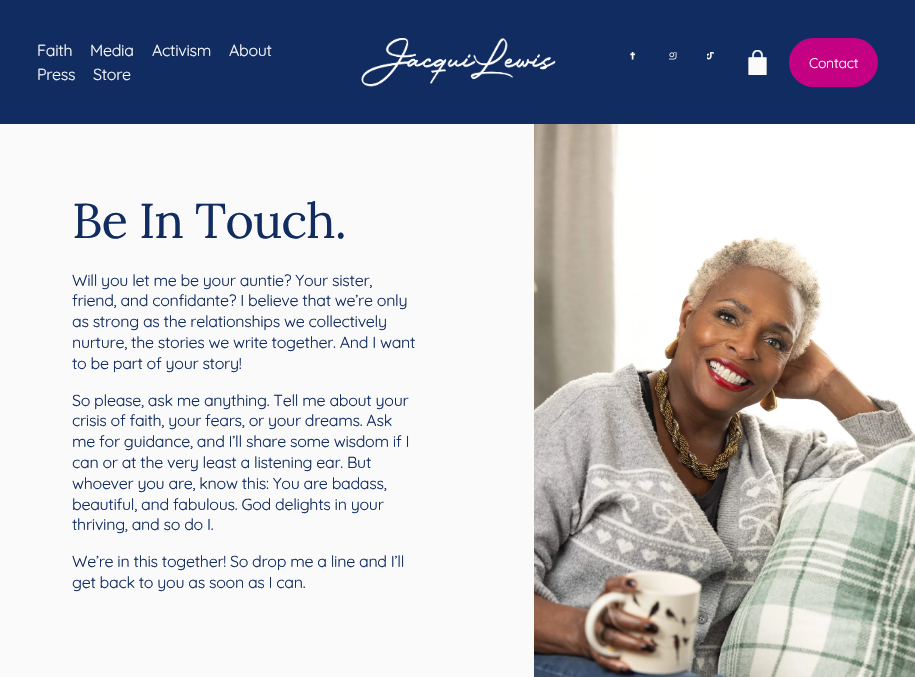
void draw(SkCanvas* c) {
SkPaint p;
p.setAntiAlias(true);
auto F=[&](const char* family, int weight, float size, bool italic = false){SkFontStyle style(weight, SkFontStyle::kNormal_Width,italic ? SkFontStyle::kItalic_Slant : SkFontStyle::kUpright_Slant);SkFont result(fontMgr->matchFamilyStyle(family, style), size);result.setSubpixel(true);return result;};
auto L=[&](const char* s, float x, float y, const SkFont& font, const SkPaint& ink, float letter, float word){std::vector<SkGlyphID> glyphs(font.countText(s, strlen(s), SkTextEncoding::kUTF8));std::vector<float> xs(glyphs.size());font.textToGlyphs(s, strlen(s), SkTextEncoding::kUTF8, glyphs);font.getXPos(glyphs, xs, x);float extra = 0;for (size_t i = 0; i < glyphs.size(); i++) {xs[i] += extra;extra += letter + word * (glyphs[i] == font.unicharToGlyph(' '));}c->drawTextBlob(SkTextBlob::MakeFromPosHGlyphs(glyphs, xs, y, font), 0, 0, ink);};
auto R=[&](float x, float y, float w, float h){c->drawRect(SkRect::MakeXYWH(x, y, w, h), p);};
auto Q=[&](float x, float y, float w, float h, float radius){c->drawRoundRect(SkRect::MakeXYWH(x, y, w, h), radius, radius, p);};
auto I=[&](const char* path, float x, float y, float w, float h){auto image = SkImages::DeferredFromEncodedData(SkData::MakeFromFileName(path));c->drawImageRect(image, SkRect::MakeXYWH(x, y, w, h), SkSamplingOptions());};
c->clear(0xfffafafa);
p.setColor(0xff112c61);
R(0,0,915,124);
auto f1 = F("Quicksand",400,16);
p.setColor(0xfffafafa);
L("Faith",37,56,f1,p,-.3,0);
L("Media",90,56,f1,p,-.3,0);
L("Activism",152,56,f1,p,-.3,0);
L("About",229,56,f1,p,-.3,0);
L("Press",37,80,f1,p,-.3,0);
L("Store",93,80,f1,p,-.3,0);
I("1.png",361,38,195,49);
I("2.png",630,52,6,8);
I("3.png",669,52,8,8);
I("4.png",707,52,7,8);
I("5.png",748,50,19,25);
p.setColor(0xffc40083);
Q(789,38,89,49,24.5);
auto f2 = F("Quicksand",400,14);
p.setColor(0xfffafafa);
L("Contact",809,68,f2,p,-.25,0);
auto f3 = F("Lora",400,49);
p.setColor(0xff112c61);
L("Be In Touch.",72,238,f3,p,-1,0);
I("6.png",534,124,381,553);
L("Will you let me be your auntie? Your sister,",72,286,f1,p,-.3,0);
L("friend, and confidante? I believe that we’re only",72,306,f1,p,-.3,0);
L("as strong as the relationships we collectively",72,327,f1,p,-.3,0);
L("nurture, the stories we write together. And I want",72,348,f1,p,-.3,0);
L("to be part of your story!",72,369,f1,p,-.3,0);
L("So please, ask me anything. Tell me about your",72,406,f1,p,-.3,0);
L("crisis of faith, your fears, or your dreams. Ask",72,426,f1,p,-.3,0);
L("me for guidance, and I’ll share some wisdom if I",72,447,f1,p,-.3,0);
L("can or at the very least a listening ear. But",72,468,f1,p,-.3,0);
L("whoever you are, know this: You are badass,",72,489,f1,p,-.3,0);
L("beautiful, and fabulous. God delights in your",72,510,f1,p,-.3,0);
L("thriving, and so do I.",72,530,f1,p,-.3,0);
L("We’re in this together! So drop me a line and I’ll",72,567,f1,p,-.3,0);
L("get back to you as soon as I can.",72,588,f1,p,-.3,0);
}
